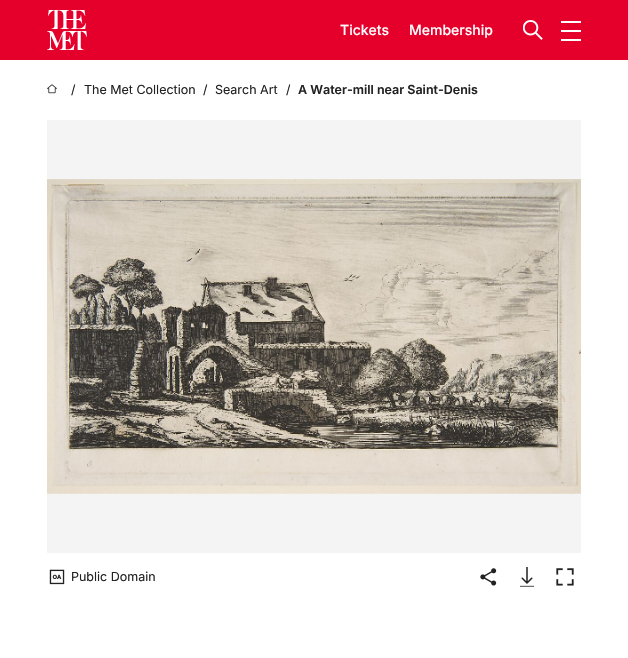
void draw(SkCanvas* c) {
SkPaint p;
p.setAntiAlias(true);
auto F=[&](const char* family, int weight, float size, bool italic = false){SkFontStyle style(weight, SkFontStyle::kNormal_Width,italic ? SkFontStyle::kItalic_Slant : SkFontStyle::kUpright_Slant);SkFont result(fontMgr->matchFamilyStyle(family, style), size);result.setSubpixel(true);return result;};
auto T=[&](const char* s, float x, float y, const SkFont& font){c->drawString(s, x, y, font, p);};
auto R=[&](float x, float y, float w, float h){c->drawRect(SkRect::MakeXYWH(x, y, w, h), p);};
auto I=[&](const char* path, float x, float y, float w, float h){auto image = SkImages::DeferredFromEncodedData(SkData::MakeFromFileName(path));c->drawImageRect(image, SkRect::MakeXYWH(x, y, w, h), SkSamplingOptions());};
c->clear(0xffffffff);
p.setColor(0xffe4002b);
R(0,0,628,60);
I("1.png",47,10,40,40);
auto f1 = F("Inter",500,14);
p.setColor(0xffffffff);
T("Tickets",340,35,f1);
T("Membership",409,35,f1);
I("2.png",523,20,20,20);
I("3.png",561,21,20,20);
I("4.png",47,84,10,10);
auto f2 = F("Inter",400,12.5);
p.setColor(0xff222222);
T("/",71,94,f2);
T("The Met Collection",84,94,f2);
T("/",203,94,f2);
T("Search Art",215,94,f2);
T("/",286,94,f2);
auto f3 = F("Inter",600,12.5);
T("A Water-mill near Saint-Denis",298,94,f3);
p.setColor(0xfff4f4f4);
R(47,120,534,433);
I("5.png",47,179,534,315);
I("6.png",49,569,16,16);
p.setColor(0xff222222);
T("Public Domain",71,581,f2);
I("7.png",480,568,17,18);
I("8.png",520,567,14,20);
I("9.png",556,568,18,18);
}
